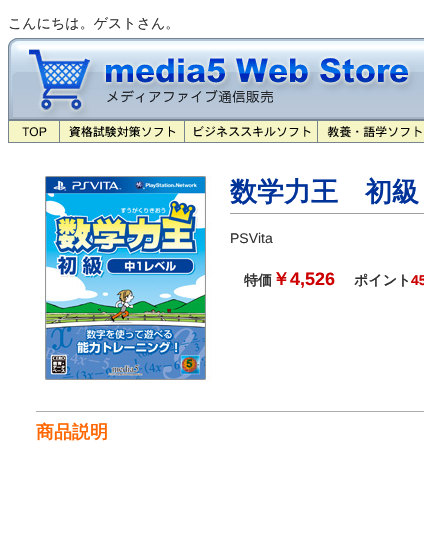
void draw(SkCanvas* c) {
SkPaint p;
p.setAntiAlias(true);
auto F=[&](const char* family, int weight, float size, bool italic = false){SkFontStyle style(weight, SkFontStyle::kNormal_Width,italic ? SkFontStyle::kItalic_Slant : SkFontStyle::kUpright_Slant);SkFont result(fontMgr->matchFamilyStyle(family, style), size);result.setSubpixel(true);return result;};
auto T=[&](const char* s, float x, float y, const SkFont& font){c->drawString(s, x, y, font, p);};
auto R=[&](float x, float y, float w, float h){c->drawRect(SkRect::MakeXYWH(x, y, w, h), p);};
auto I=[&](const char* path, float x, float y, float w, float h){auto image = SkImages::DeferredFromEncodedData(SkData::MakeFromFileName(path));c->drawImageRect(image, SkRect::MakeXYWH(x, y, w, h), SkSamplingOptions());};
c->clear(0xffffffff);
auto f1 = F("WenQuanYi Zen Hei",500,14);
p.setColor(0xff333333);
T("こんにちは。ゲストさん。",8,28,f1);
I("1.png",8,38,416,82);
I("2.png",8,120,51,23);
I("3.png",59,120,125,23);
I("4.png",184,120,133,23);
I("5.png",317,120,107,23);
I("6.png",44,175,168,208);
auto f2 = F("WenQuanYi Zen Hei",700,27);
p.setColor(0xff003399);
T("数学力王　初級",230,201,f2);
p.setColor(0xff9f9f9f);
R(230,213,194,1);
auto f3 = F("Liberation Sans",400,14);
p.setColor(0xff333333);
T("PSVita",230,243,f3);
auto f4 = F("WenQuanYi Zen Hei",700,14);
T("特価",244,285,f4);
auto f5 = F("WenQuanYi Zen Hei",700,18);
p.setColor(0xffcc0000);
T("￥",272,285,f5);
auto f6 = F("Liberation Sans",700,18);
T("4,526",290,285,f6);
p.setColor(0xff333333);
T("ポイント",354,285,f4);
auto f7 = F("Liberation Sans",700,14);
p.setColor(0xffcc0000);
T("45",411,285,f7);
p.setColor(0xffadadad);
R(36,411,388,1);
p.setColor(0xffff6600);
T("商品説明",36,438,f5);
}
